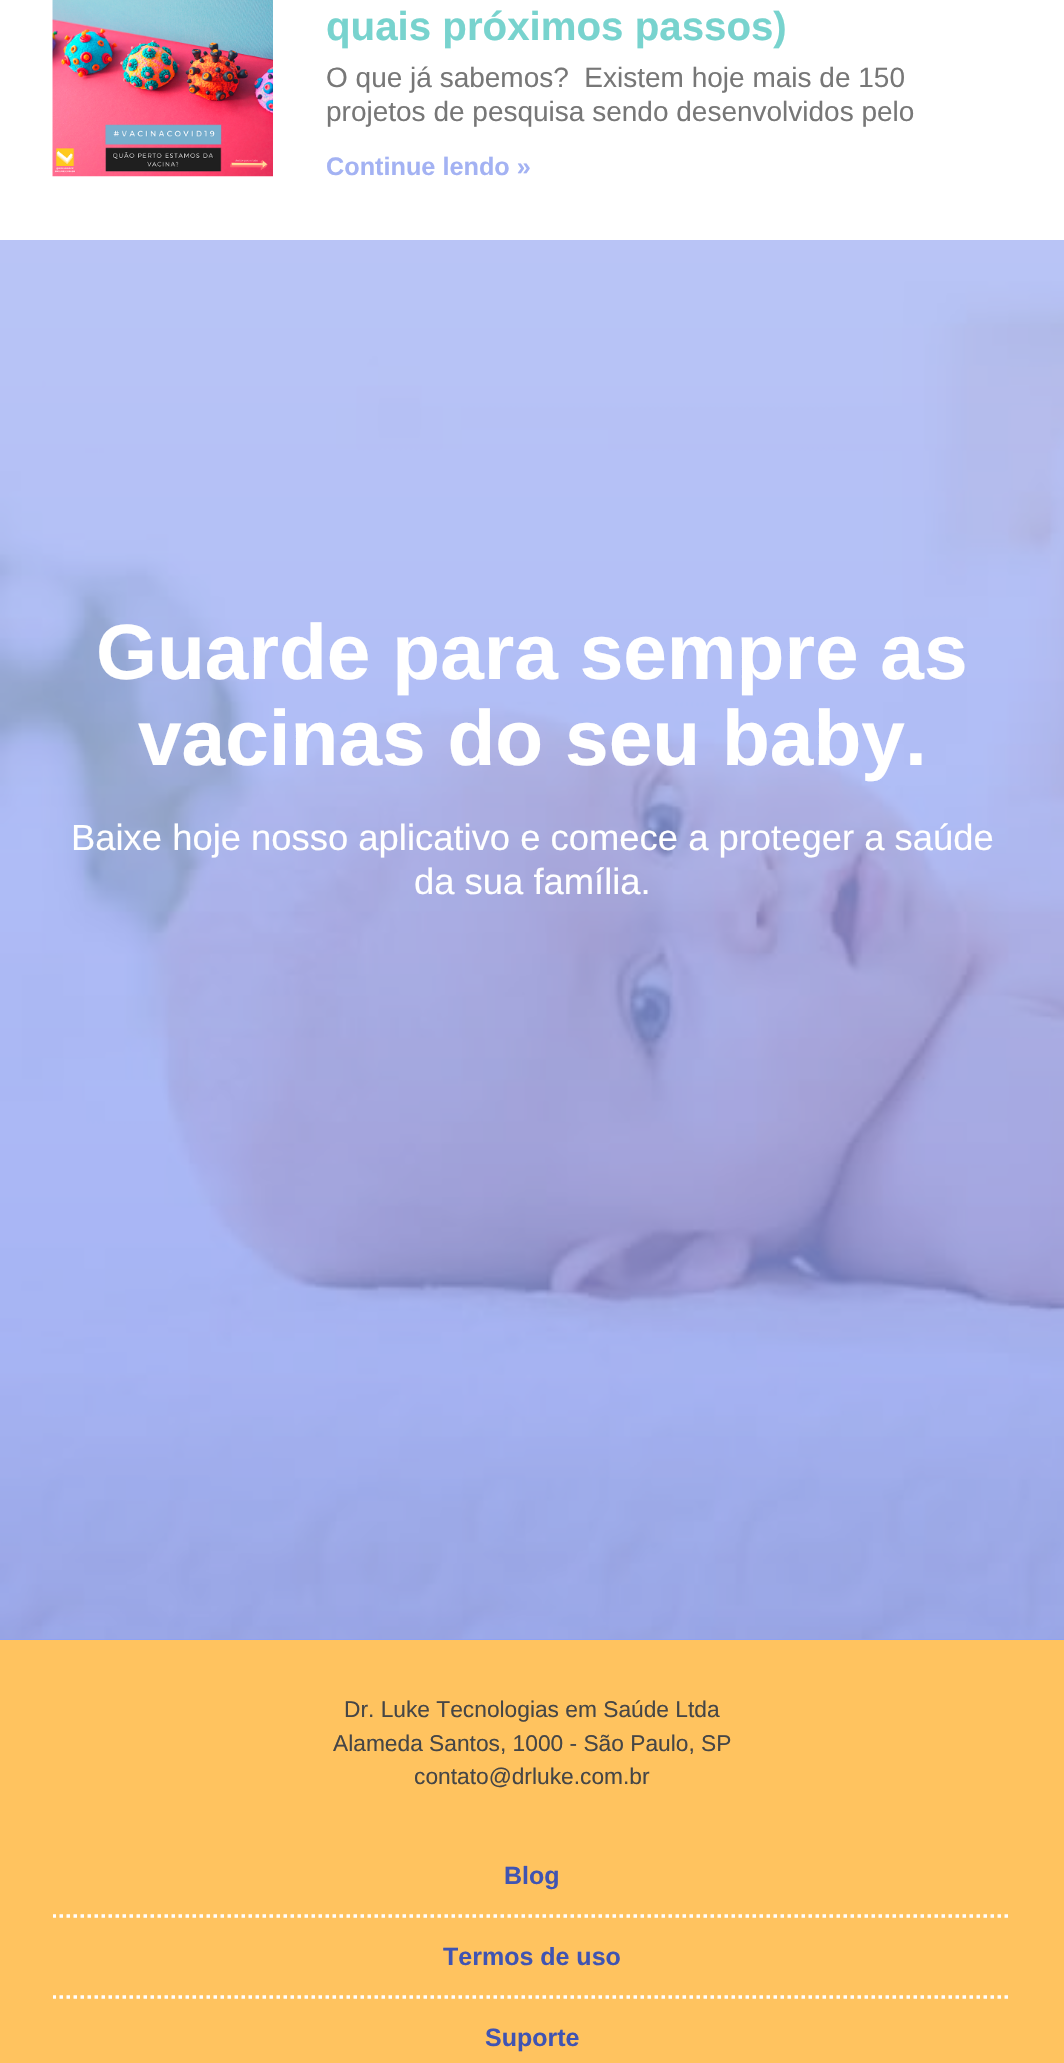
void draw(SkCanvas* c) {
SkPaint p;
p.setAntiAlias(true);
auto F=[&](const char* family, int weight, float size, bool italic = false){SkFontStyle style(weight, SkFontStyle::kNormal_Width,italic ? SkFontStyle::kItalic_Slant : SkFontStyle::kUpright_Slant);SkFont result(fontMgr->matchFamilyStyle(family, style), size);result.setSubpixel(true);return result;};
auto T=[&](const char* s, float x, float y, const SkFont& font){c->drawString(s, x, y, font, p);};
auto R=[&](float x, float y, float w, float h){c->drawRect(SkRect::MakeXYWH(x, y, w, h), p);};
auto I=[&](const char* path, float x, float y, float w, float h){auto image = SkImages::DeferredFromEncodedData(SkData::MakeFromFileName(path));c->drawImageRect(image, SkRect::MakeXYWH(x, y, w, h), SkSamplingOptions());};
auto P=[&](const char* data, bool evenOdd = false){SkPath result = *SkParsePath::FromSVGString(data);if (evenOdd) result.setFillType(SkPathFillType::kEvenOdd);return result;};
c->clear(0xffffffff);
I("1.png",52,0,221,177);
auto f1 = F("Liberation Sans",700,40.25);
p.setColor(0xff78d3ce);
T("quais próximos passos)",326,40,f1);
auto f2 = F("Liberation Sans",400,28);
p.setColor(0xff777777);
T("O que já sabemos?  Existem hoje mais de 150",326,87,f2);
T("projetos de pesquisa sendo desenvolvidos pelo",326,121,f2);
auto f3 = F("Liberation Sans",700,25.25);
p.setColor(0xffa3b2f3);
T("Continue lendo »",326,175,f3);
R(0,1639,1064,1);
I("2.png",0,240,1064,1400);
{
const SkColor colors[] = {0xc2a3b2f3,0xc2859af3};
const float stops[] = {0,1};
const SkPoint ends[] = {{532,240}, {532,1640}};
p.setShader(SkGradientShader::MakeLinear(ends, colors, stops, 2, SkTileMode::kClamp));
p.setAlpha(255);
}
R(0,240,1064,1400);
auto f4 = F("Liberation Sans",700,78.4);
p.setShader(nullptr);
p.setColor(0xffffffff);
T("Guarde para sempre as",96,679,f4);
T("vacinas do seu baby.",138,765,f4);
auto f5 = F("Liberation Sans",400,36.4);
T("Baixe hoje nosso aplicativo e comece a proteger a saúde",71,850,f5);
T("da sua família.",414,894,f5);
p.setColor(0xffffc35f);
R(0,1640,1064,423);
auto f6 = F("Liberation Sans",400,22.75);
p.setColor(0xff464646);
T("Dr. Luke Tecnologias em Saúde Ltda",344,1717,f6);
T("Alameda Santos, 1000 - São Paulo, SP",333,1751,f6);
T("contato@drluke.com.br",414,1784,f6);
c->save();
c->clipRect(SkRect::MakeXYWH(53,1836,959,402));
p.setStroke(true);
p.setStrokeWidth(3.5);
p.setColor(0xffffffff);
p.setPathEffect(SkDashPathEffect::Make({{3.5f,3.5f}}, 0));
c->drawPath(P("M52.5 1916h959"),p);
p.setPathEffect(nullptr);
c->restore();
auto f7 = F("Liberation Sans",700,25);
p.setStroke(false);
p.setColor(0xff4054b2);
T("Blog",504,1884,f7);
c->save();
c->clipRect(SkRect::MakeXYWH(53,1836,959,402));
p.setStroke(true);
p.setColor(0xffffffff);
p.setPathEffect(SkDashPathEffect::Make({{3.5f,3.5f}}, 0));
c->drawPath(P("M52.5 1997h959"),p);
p.setPathEffect(nullptr);
c->restore();
p.setStroke(false);
p.setColor(0xff4054b2);
T("Termos de uso",443,1965,f7);
T("Suporte",485,2046,f7);
}
